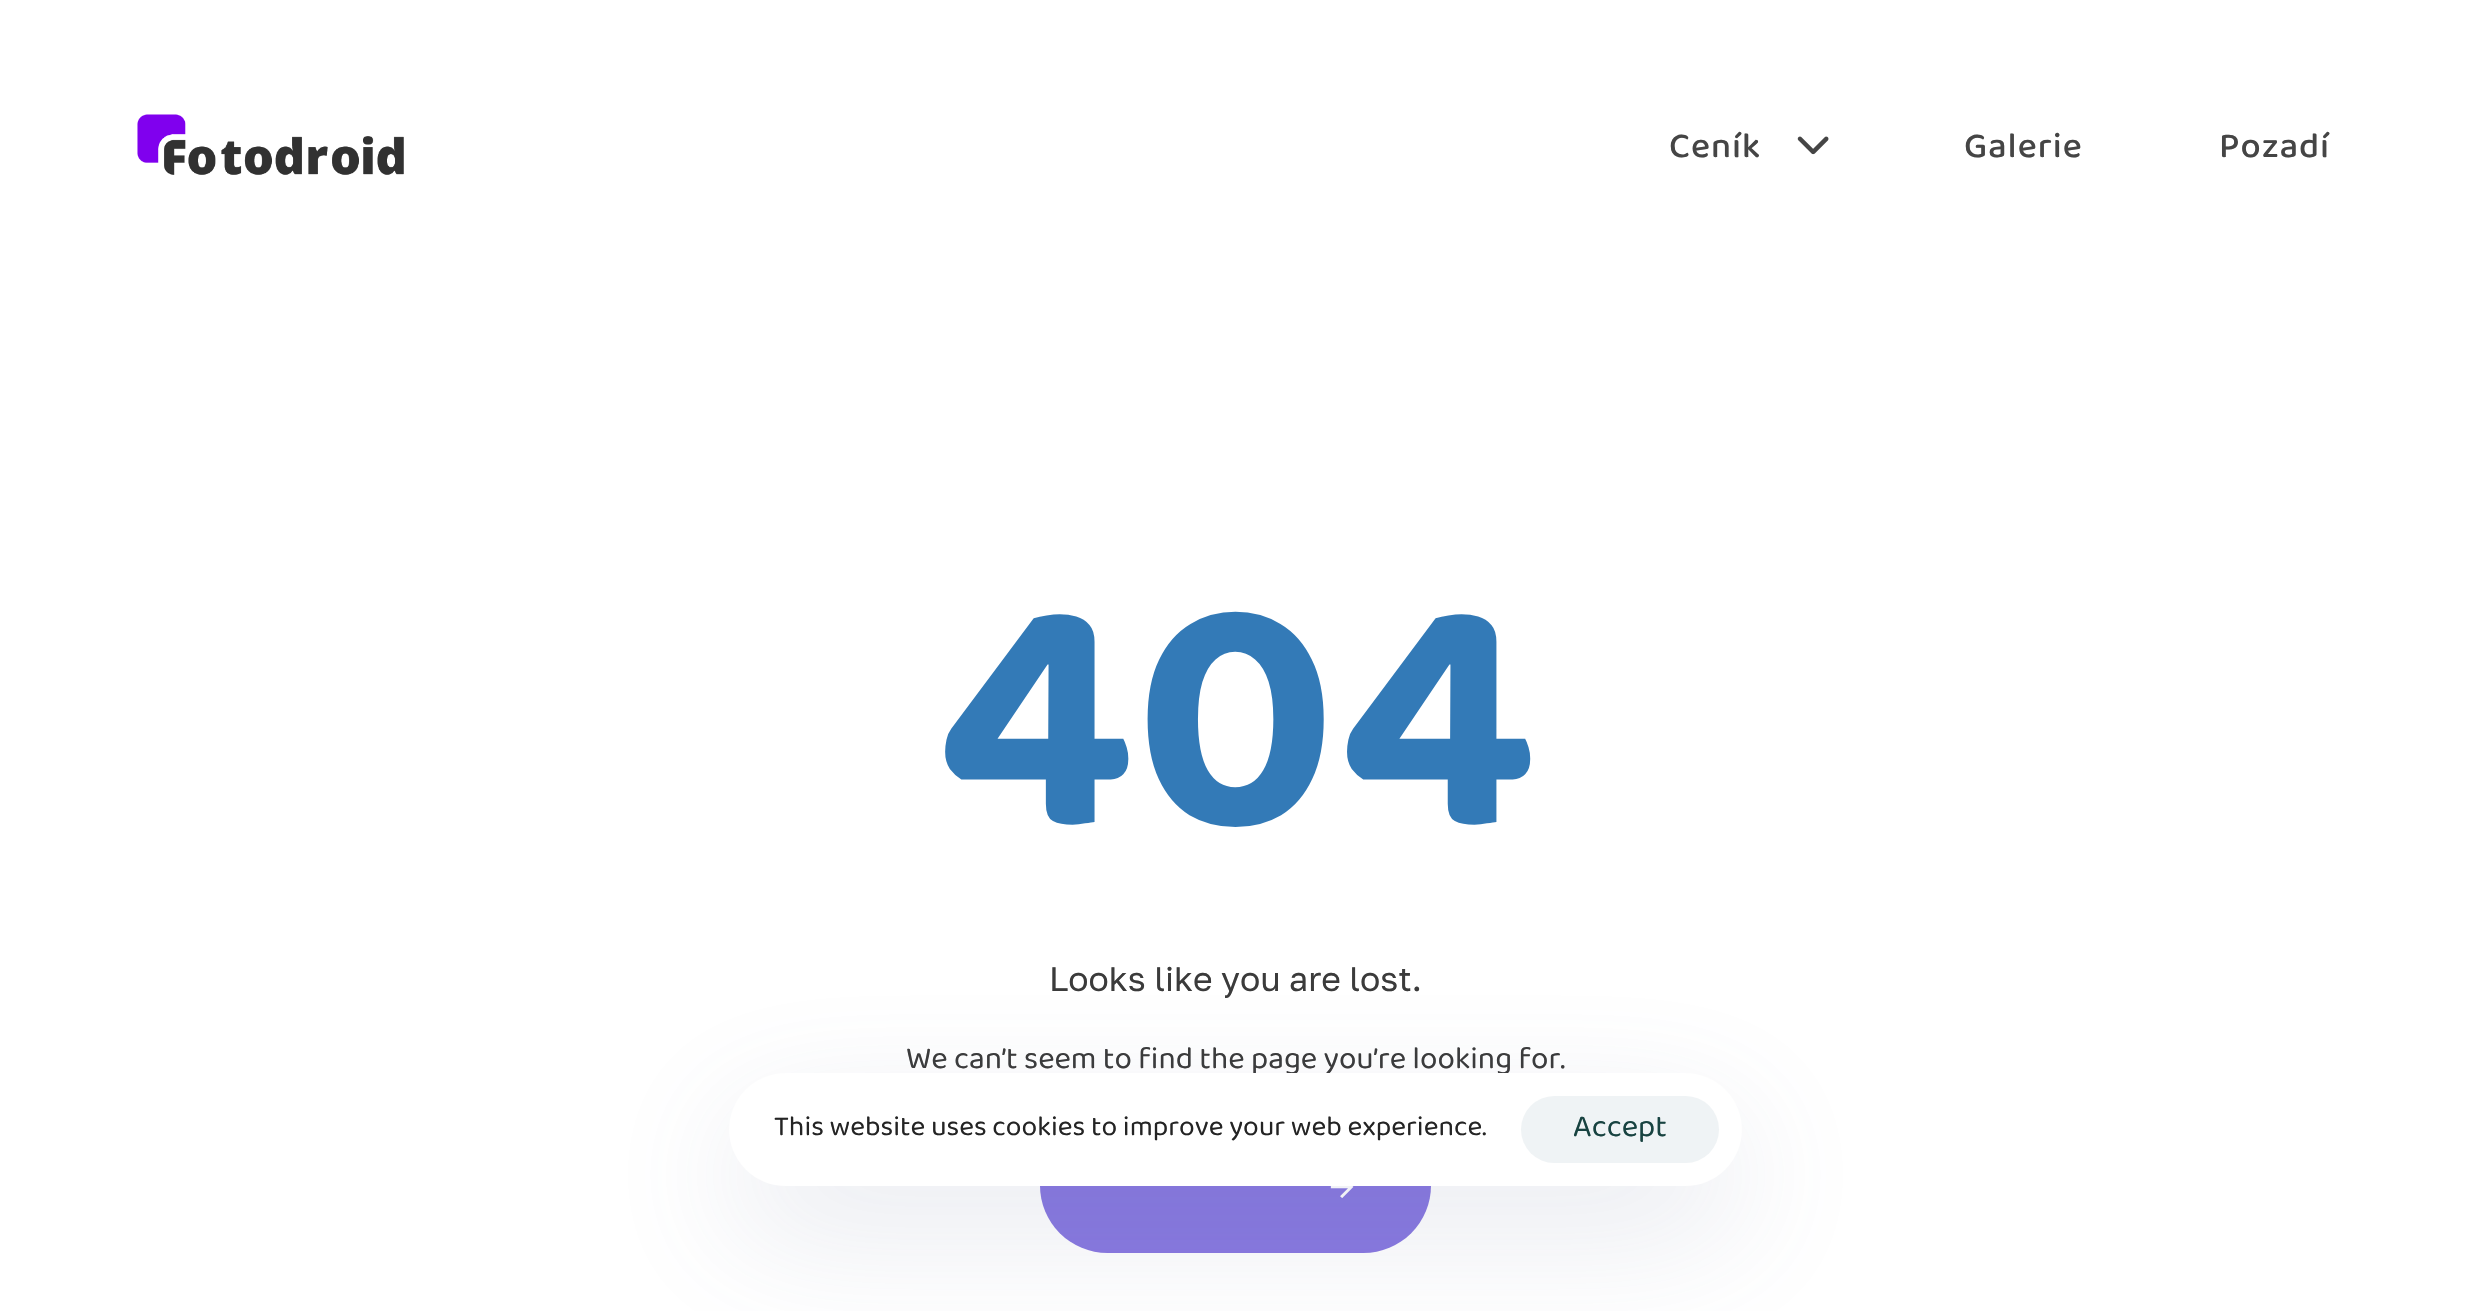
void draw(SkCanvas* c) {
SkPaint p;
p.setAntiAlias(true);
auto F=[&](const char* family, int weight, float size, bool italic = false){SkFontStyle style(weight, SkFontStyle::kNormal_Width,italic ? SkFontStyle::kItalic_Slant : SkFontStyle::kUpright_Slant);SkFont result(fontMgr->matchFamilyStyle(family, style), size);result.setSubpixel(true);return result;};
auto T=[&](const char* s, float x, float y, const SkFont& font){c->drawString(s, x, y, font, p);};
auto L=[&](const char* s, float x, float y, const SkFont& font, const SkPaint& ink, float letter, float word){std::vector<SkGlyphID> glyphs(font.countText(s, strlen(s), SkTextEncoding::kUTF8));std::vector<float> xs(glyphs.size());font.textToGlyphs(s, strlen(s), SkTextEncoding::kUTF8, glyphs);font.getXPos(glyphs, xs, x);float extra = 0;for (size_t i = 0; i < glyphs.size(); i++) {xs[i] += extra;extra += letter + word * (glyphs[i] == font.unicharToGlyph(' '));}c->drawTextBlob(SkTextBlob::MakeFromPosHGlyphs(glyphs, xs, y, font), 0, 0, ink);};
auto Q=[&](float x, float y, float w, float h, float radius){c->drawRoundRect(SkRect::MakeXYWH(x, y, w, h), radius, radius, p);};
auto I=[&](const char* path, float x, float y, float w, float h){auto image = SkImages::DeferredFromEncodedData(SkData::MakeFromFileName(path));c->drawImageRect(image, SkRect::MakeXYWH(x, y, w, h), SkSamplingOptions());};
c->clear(0xffffffff);
I("1.png",137,114,267,61);
auto f1 = F("Baloo Da 2",500,36);
p.setColor(0xff454545);
L("Ceník",1669,157,f1,p,1,0);
I("2.png",1797,136,32,19);
L("Galerie",1964,157,f1,p,1,0);
L("Pozadí",2219,157,f1,p,1,0);
auto f2 = F("Baloo Da 2",700,338);
p.setColor(0xff337ab7);
T("404",935,822,f2);
auto f3 = F("Golos Text",400,33.75);
p.setColor(0xff3a3a3a);
T("Looks like you are lost.",1049,991,f3);
auto f4 = F("Baloo Da 2",400,31.5);
T("We can’t seem to find the page you’re looking for.",906,1068,f4);
p.setColor(0xff8777e0);
Q(1040,1118,391,135,67.5);
I("3.png",1330,1186,24,12);
p.setColor(0x265c6b95);
p.setMaskFilter(SkMaskFilter::MakeBlur(kNormal_SkBlurStyle, 67.5));
c->drawRoundRect(SkRect::MakeXYWH(729,1118,1013,113),56.5,56.5,p);
p.setMaskFilter(nullptr);
p.setColor(0xffffffff);
Q(729,1073,1013,113,56.5);
auto f5 = F("Baloo Da 2",400,28.35);
p.setColor(0xff242424);
T("This website uses cookies to improve your web experience.",774,1135,f5);
p.setColor(0xffeff3f5);
Q(1521,1096,198,67,33.5);
p.setColor(0xff184341);
T("Accept",1573,1136,f4);
}
